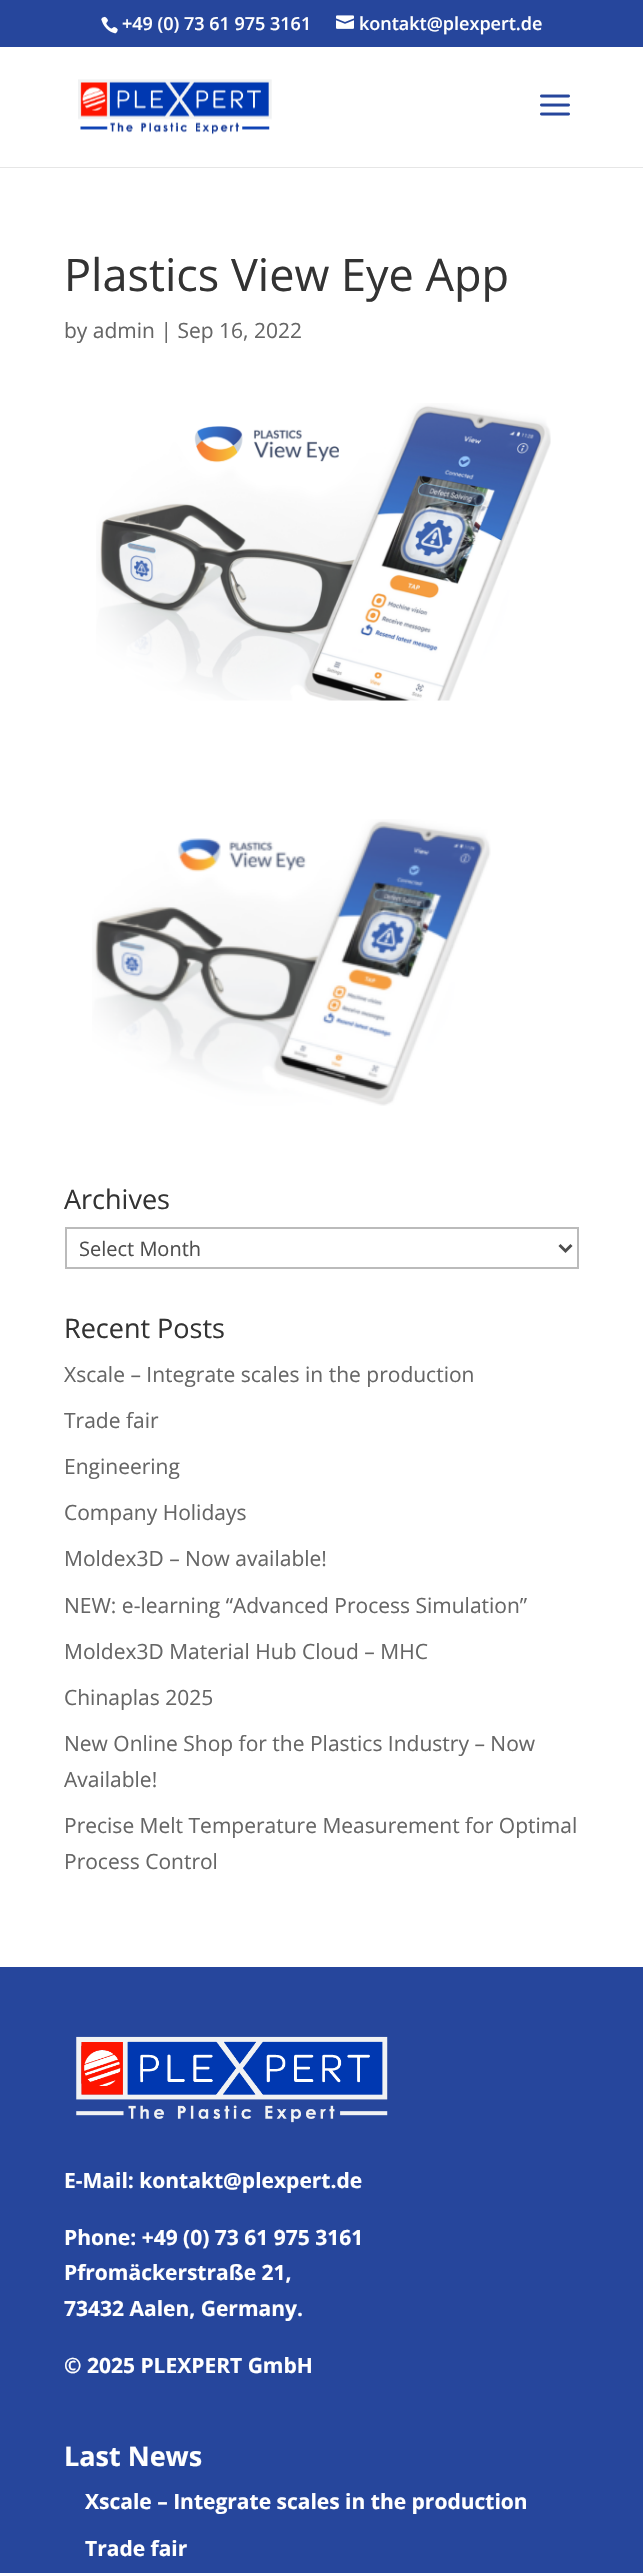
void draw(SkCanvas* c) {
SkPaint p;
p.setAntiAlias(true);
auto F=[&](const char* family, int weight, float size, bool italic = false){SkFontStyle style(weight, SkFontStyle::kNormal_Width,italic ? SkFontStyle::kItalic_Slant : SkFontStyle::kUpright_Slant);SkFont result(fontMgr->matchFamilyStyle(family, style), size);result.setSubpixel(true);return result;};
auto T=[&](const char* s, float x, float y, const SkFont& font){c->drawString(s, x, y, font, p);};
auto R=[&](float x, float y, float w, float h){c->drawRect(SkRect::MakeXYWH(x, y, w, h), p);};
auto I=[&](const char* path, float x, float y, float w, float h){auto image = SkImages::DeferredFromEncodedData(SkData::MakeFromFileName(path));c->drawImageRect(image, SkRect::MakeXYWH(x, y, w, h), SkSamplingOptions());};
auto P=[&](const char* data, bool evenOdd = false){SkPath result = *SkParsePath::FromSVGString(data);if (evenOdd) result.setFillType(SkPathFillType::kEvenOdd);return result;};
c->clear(0xffffffff);
p.setColor(0xff26469c);
R(0,0,643,47);
I("1.png",101,16,17,18);
auto f1 = F("Open Sans",600,18);
p.setColor(0xffffffff);
T("+49 (0) 73 61 975 3161",122,30,f1);
I("2.png",336,15,18,14);
T("kontakt@plexpert.de",359,30,f1);
p.setColor(0xffe6e6e6);
c->drawPath(P("M0 166v2h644v-120v118z"),p);
p.setColor(0xffffffff);
R(0,166,643,1);
I("3.png",78,79,194,56);
I("4.png",540,94,30,22);
auto f2 = F("Open Sans",400,45);
p.setColor(0xff333333);
T("Plastics View Eye App",64,291,f2);
auto f3 = F("Open Sans",400,21);
p.setColor(0xff666666);
T("by admin | Sep 16, 2022",64,338,f3);
I("5.png",96,403,455,298);
I("6.png",92,819,399,287);
auto f4 = F("Open Sans",400,27);
p.setColor(0xff333333);
T("Archives",64,1209,f4);
p.setStroke(true);
p.setStrokeWidth(2);
p.setColor(0xffbbbbbb);
c->drawRect(SkRect::MakeXYWH(66,1228,512,40),p);
p.setStrokeWidth(3);
p.setColor(0xff4e4e4e);
c->drawPath(P("M559.5 1245l6 6l6-6"),p);
auto f5 = F("Open Sans",400,20);
p.setStroke(false);
T("Select Month",79,1256,f5);
p.setColor(0xff333333);
T("Recent Posts",64,1338,f4);
p.setColor(0xff666666);
T("Xscale – Integrate scales in the production",64,1382,f3);
T("Trade fair",64,1428,f3);
T("Engineering",64,1474,f3);
T("Company Holidays",64,1520,f3);
T("Moldex3D – Now available!",64,1566,f3);
T("NEW: e-learning “Advanced Process Simulation”",64,1613,f3);
T("Moldex3D Material Hub Cloud – MHC",64,1659,f3);
T("Chinaplas 2025",64,1705,f3);
T("New Online Shop for the Plastics Industry – Now",64,1751,f3);
T("Available!",64,1787,f3);
T("Precise Melt Temperature Measurement for Optimal",64,1833,f3);
T("Process Control",64,1869,f3);
p.setColor(0xff26469c);
R(0,1967,643,606);
I("7.png",76,2036,312,87);
auto f6 = F("Open Sans",700,21);
p.setColor(0xffffffff);
T("E-Mail: kontakt@plexpert.de",64,2188,f6);
T("Phone: +49 (0) 73 61 975 3161",64,2245,f6);
T("Pfromäckerstraße 21,",64,2280,f6);
T("73432 Aalen, Germany.",64,2316,f6);
T("© 2025 PLEXPERT GmbH",64,2373,f6);
auto f7 = F("Open Sans",700,27);
T("Last News",64,2466,f7);
T("Xscale – Integrate scales in the production",85,2509,f6);
T("Trade fair",85,2556,f6);
}
